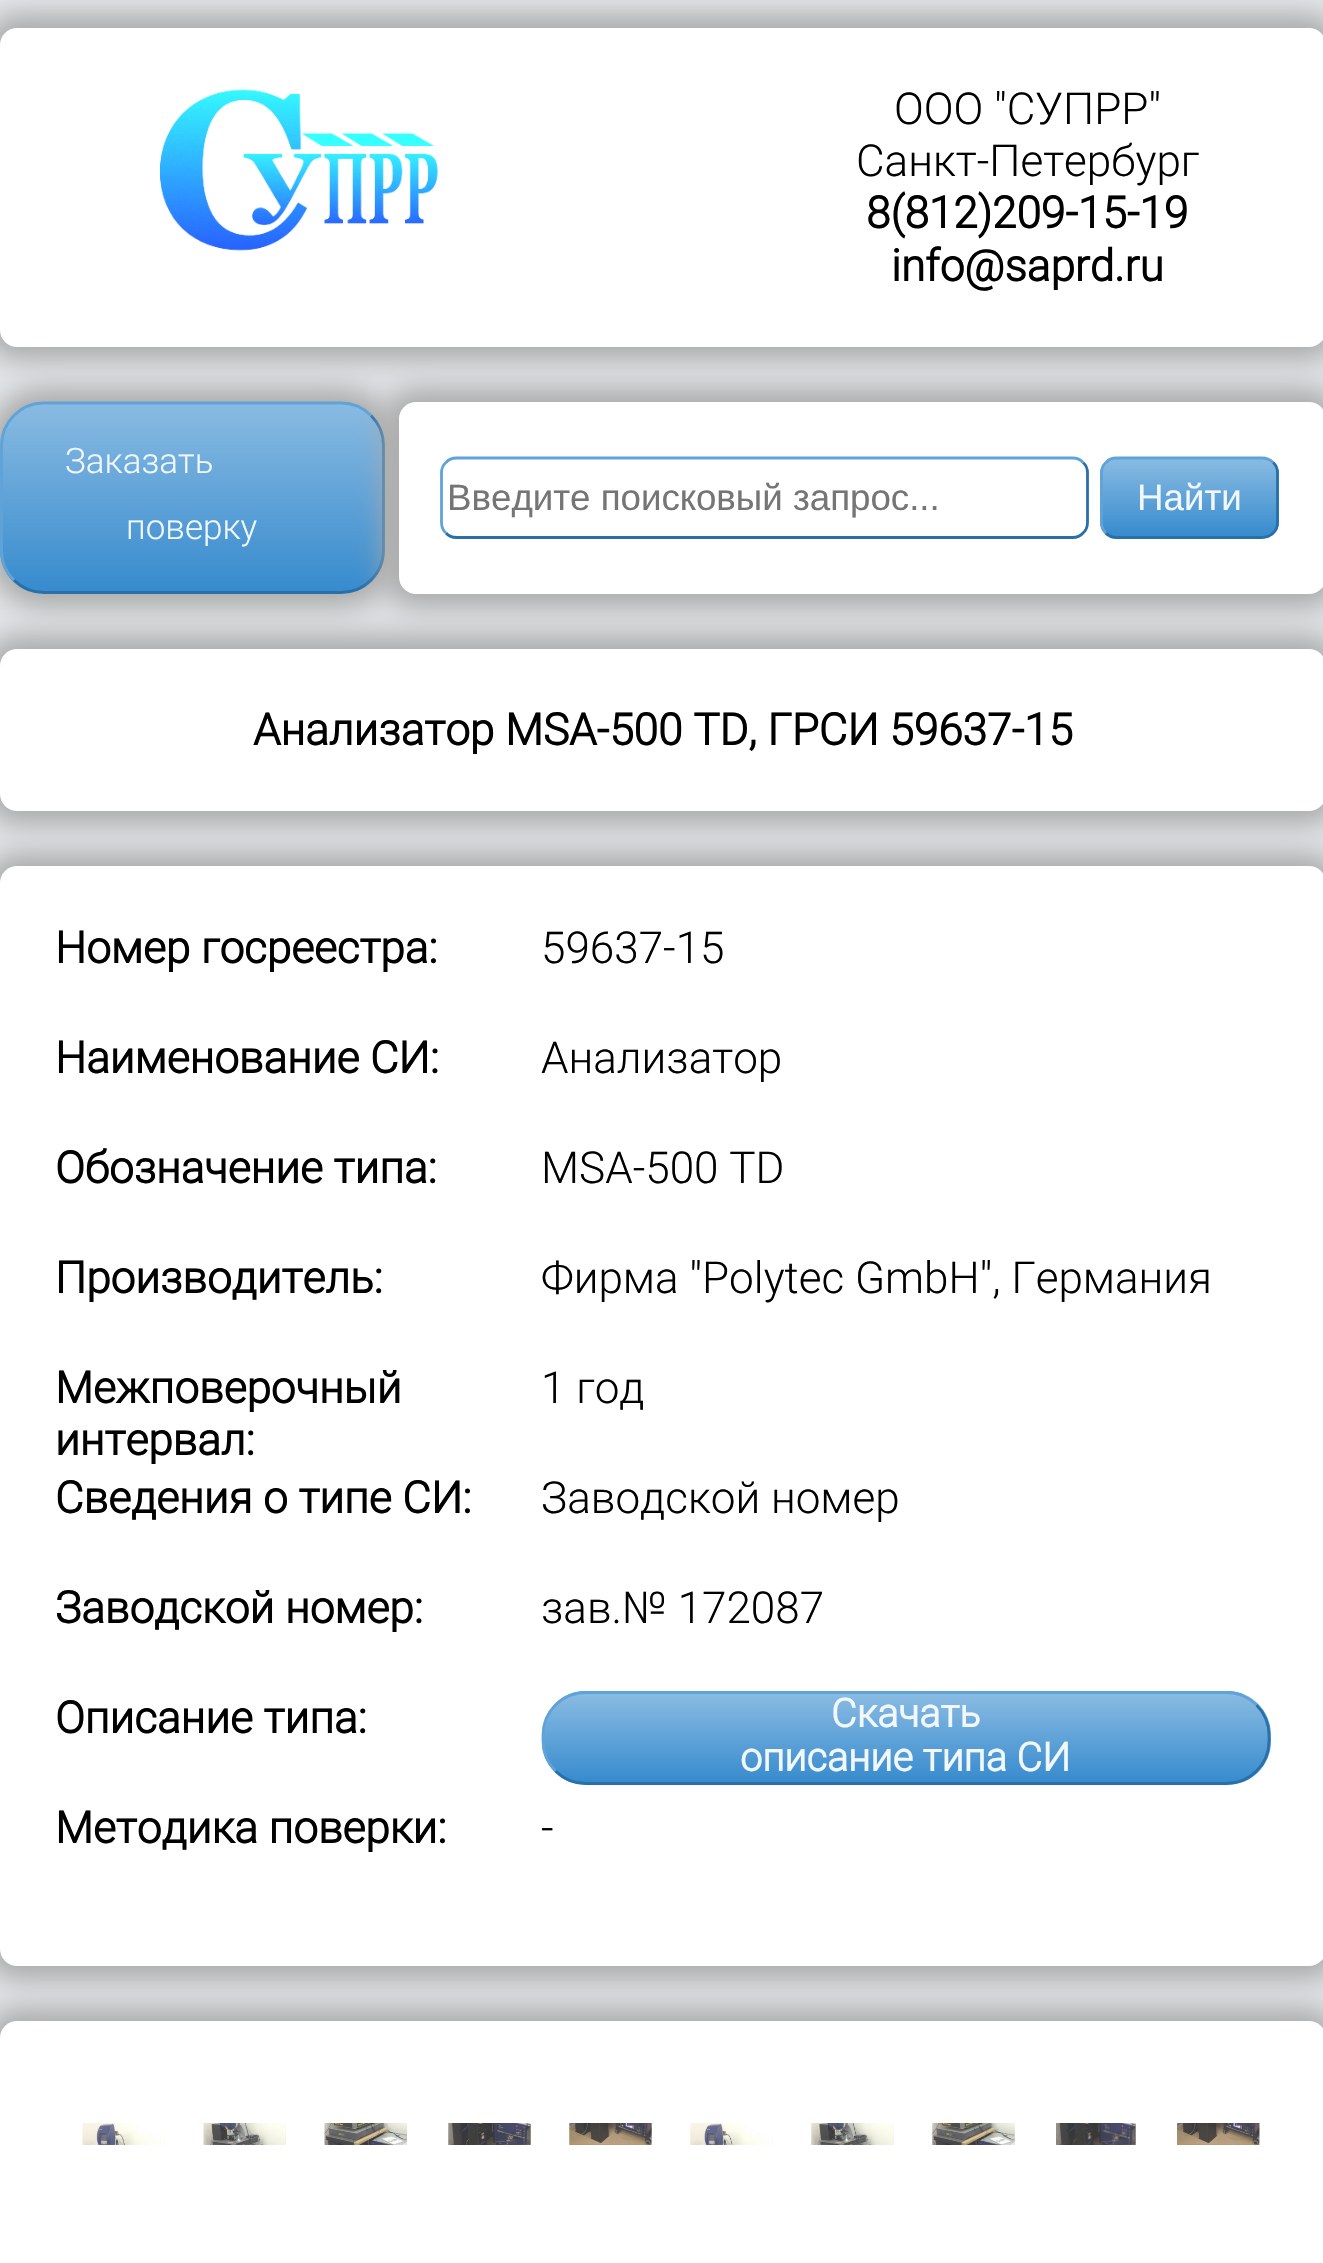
void draw(SkCanvas* c) {
SkPaint p;
p.setAntiAlias(true);
auto F=[&](const char* family, int weight, float size, bool italic = false){SkFontStyle style(weight, SkFontStyle::kNormal_Width,italic ? SkFontStyle::kItalic_Slant : SkFontStyle::kUpright_Slant);SkFont result(fontMgr->matchFamilyStyle(family, style), size);result.setSubpixel(true);return result;};
auto T=[&](const char* s, float x, float y, const SkFont& font){c->drawString(s, x, y, font, p);};
auto R=[&](float x, float y, float w, float h){c->drawRect(SkRect::MakeXYWH(x, y, w, h), p);};
auto Q=[&](float x, float y, float w, float h, float radius){c->drawRoundRect(SkRect::MakeXYWH(x, y, w, h), radius, radius, p);};
auto I=[&](const char* path, float x, float y, float w, float h){auto image = SkImages::DeferredFromEncodedData(SkData::MakeFromFileName(path));c->drawImageRect(image, SkRect::MakeXYWH(x, y, w, h), SkSamplingOptions());};
auto P=[&](const char* data, bool evenOdd = false){SkPath result = *SkParsePath::FromSVGString(data);if (evenOdd) result.setFillType(SkPathFillType::kEvenOdd);return result;};
c->clear(0xffe4e7ea);
p.setColor(0xffaaaaaa);
p.setMaskFilter(SkMaskFilter::MakeBlur(kNormal_SkBlurStyle, 14));
c->drawRoundRect(SkRect::MakeXYWH(-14,14,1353,346),30,30,p);
p.setMaskFilter(nullptr);
p.setColor(0xffffffff);
Q(0,28,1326,319,17);
I("1.png",159,89,279,162);
auto f1 = F("Roboto",300,44);
p.setColor(0xff000000);
T("ООО \"СУПРР\"",894,124,f1);
T("Санкт-Петербург",856,176,f1);
auto f2 = F("Roboto",700,44);
T("8(812)209-15-19",866,228,f2);
T("info@saprd.ru",891,281,f2);
p.setColor(0xffaaaaaa);
p.setMaskFilter(SkMaskFilter::MakeBlur(kNormal_SkBlurStyle, 14));
c->drawRoundRect(SkRect::MakeXYWH(-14,388,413,220),58,58,p);
p.setMaskFilter(nullptr);
c->save();
c->clipPath(P("M44 402h297c24.5 0 44 19.5 44 44v104c0 24.5-19.5 44-44 44h-297c-24.5 0-44-19.5-44-44v-104c0-24.5 19.5-44 44-44z"),true);
{
const SkColor colors[] = {0xff89bbe2,0xff60a3d8,0xff378bce};
const float stops[] = {0,.5,1};
const SkPoint ends[] = {{193,404}, {193,591}};
p.setShader(SkGradientShader::MakeLinear(ends, colors, stops, 3, SkTileMode::kClamp));
p.setAlpha(255);
}
R(0,404,385,187);
{
const SkColor colors[] = {0xff89bbe2,0xff60a3d8,0xff378bce};
const float stops[] = {0,.5,1};
const SkPoint ends[] = {{193,591}, {193,778}};
p.setShader(SkGradientShader::MakeLinear(ends, colors, stops, 3, SkTileMode::kClamp));
p.setAlpha(255);
}
R(28,591,329,3);
c->restore();
p.setStroke(true);
p.setStrokeWidth(2.8);
p.setShader(nullptr);
p.setColor(0xff2970a9);
c->drawPath(P("M371 415.5c8 8 12.5 18.5 12.5 30v104.5c0 11.5-4.5 22-12.5 30c-8 8-18.5 12.5-30 12.5h-297c-11.5 0-22-4.5-30-12.5"),p);
p.setColor(0xff60a3d8);
c->drawPath(P("M14 580c-8-8-12.5-18.5-12.5-30v-104.5c0-11.5 4.5-22 12.5-30c8-8 18.5-12.5 30-12.5h297c11.5 0 22 4.5 30 12.5"),p);
auto f3 = F("Roboto",300,35);
p.setStroke(false);
p.setColor(0xfff1f7fb);
T("Заказать",65,473,f3);
T("поверку",126,539,f3);
p.setColor(0xffaaaaaa);
p.setMaskFilter(SkMaskFilter::MakeBlur(kNormal_SkBlurStyle, 14));
c->drawRoundRect(SkRect::MakeXYWH(385,388,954,220),30,30,p);
p.setMaskFilter(nullptr);
p.setColor(0xffffffff);
Q(399,402,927,192,17);
p.setStroke(true);
p.setColor(0xff2970a9);
c->drawPath(P("M1083 462.5c3 2.5 4.5 6.5 4.5 10.5v49.5c0 4-1.5 8-4.5 10.5c-2.5 3-6.5 4.5-10.5 4.5h-616c-4 0-8-1.5-10.5-4.5"),p);
p.setColor(0xff60a3d8);
c->drawPath(P("M446 533c-3-2.5-4.5-6.5-4.5-10.5v-49.5c0-4 1.5-8 4.5-10.5c2.5-3 6.5-4.5 10.5-4.5h616c4 0 8 1.5 10.5 4.5"),p);
auto f4 = F("Liberation Sans",400,36.7);
p.setStroke(false);
p.setColor(0xff757575);
T("Введите поисковый запрос...",447,510,f4);
c->save();
c->clipPath(P("M1117 457h145c9.5 0 17 7.5 17 17v48c0 9.5-7.5 17-17 17h-145c-9.5 0-17-7.5-17-17v-48c0-9.5 7.5-17 17-17z"),true);
{
const SkColor colors[] = {0xff89bbe2,0xff60a3d8,0xff378bce};
const float stops[] = {0,.5,1};
const SkPoint ends[] = {{1189,459}, {1189,536}};
p.setShader(SkGradientShader::MakeLinear(ends, colors, stops, 3, SkTileMode::kClamp));
p.setAlpha(255);
}
R(1100,459,179,77);
c->restore();
p.setStroke(true);
p.setShader(nullptr);
p.setColor(0xff2970a9);
c->drawPath(P("M1273 462.5c3 2.5 4.5 6.5 4.5 10.5v49.5c0 4-1.5 8-4.5 10.5c-3 3-6.5 4.5-11 4.5h-145.5c-4 0-8-1.5-10.5-4.5"),p);
p.setColor(0xff60a3d8);
c->drawPath(P("M1106 533c-3-2.5-4.5-6.5-4.5-10.5v-49.5c0-4 1.5-8 4.5-10.5c2.5-3 6.5-4.5 10.5-4.5h145.5c4.5 0 8 1.5 11 4.5"),p);
p.setStroke(false);
p.setColor(0xfff1f7fb);
T("Найти",1137,510,f4);
p.setColor(0xffaaaaaa);
p.setMaskFilter(SkMaskFilter::MakeBlur(kNormal_SkBlurStyle, 14));
c->drawRoundRect(SkRect::MakeXYWH(-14,635,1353,190),30,30,p);
p.setMaskFilter(nullptr);
p.setColor(0xffffffff);
Q(0,649,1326,162,17);
p.setColor(0xff000000);
T("Анализатор MSA-500 TD, ГРСИ 59637-15",253,745,f2);
p.setColor(0xffaaaaaa);
p.setMaskFilter(SkMaskFilter::MakeBlur(kNormal_SkBlurStyle, 14));
c->drawRoundRect(SkRect::MakeXYWH(-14,853,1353,1127),30,30,p);
p.setMaskFilter(nullptr);
p.setColor(0xffffffff);
Q(0,866,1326,1100,17);
p.setColor(0xff000000);
T("Номер госреестра:",55,963,f2);
T("59637-15",541,963,f1);
T("Наименование СИ:",55,1073,f2);
T("Анализатор",541,1073,f1);
T("Обозначение типа:",55,1183,f2);
T("MSA-500 TD",541,1183,f1);
T("Производитель:",55,1293,f2);
T("Фирма \"Polytec GmbH\", Германия",541,1293,f1);
T("Межповерочный",55,1403,f2);
T("интервал:",55,1455,f2);
T("1 год",541,1403,f1);
T("Сведения о типе СИ:",55,1513,f2);
T("Заводской номер",541,1513,f1);
T("Заводской номер:",55,1623,f2);
T("зав.№ 172087",541,1623,f1);
T("Описание типа:",55,1733,f2);
c->save();
c->clipPath(P("M586 1691h641c24.5 0 44 19.5 44 44v6c0 24.5-19.5 44-44 44h-641c-24.5 0-44-19.5-44-44v-6c0-24.5 19.5-44 44-44z"),true);
{
const SkColor colors[] = {0xff89bbe2,0xff60a3d8,0xff378bce};
const float stops[] = {0,.5,1};
const SkPoint ends[] = {{906,1606}, {906,1694}};
p.setShader(SkGradientShader::MakeLinear(ends, colors, stops, 3, SkTileMode::kClamp));
p.setAlpha(255);
}
R(570,1691,673,3);
{
const SkColor colors[] = {0xff89bbe2,0xff60a3d8,0xff378bce};
const float stops[] = {0,.5,1};
const SkPoint ends[] = {{906,1694}, {906,1782}};
p.setShader(SkGradientShader::MakeLinear(ends, colors, stops, 3, SkTileMode::kClamp));
p.setAlpha(255);
}
R(542,1694,729,88);
{
const SkColor colors[] = {0xff89bbe2,0xff60a3d8,0xff378bce};
const float stops[] = {0,.5,1};
const SkPoint ends[] = {{906,1782}, {906,1870}};
p.setShader(SkGradientShader::MakeLinear(ends, colors, stops, 3, SkTileMode::kClamp));
p.setAlpha(255);
}
R(570,1782,673,3);
c->restore();
p.setStroke(true);
p.setShader(nullptr);
p.setColor(0xff2970a9);
c->drawPath(P("M1256.5 1705c8 8 12.5 19 12.5 30v6c0 11-4.5 22-12.5 30c-8 8-18.5 12.5-30 12.5h-640.5c-11.5 0-22.5-4.5-30.5-12.5"),p);
p.setColor(0xff60a3d8);
c->drawPath(P("M555.5 1771c-8-8-12.5-19-12.5-30v-6c0-11 4.5-22 12.5-30c8-8 19-12.5 30.5-12.5h640.5c11.5 0 22 4.5 30 12.5"),p);
auto f5 = F("Roboto",700,39.5);
p.setStroke(false);
p.setColor(0xfff1f7fb);
T("Скачать",831,1727,f5);
T("описание типа СИ",740,1771,f5);
p.setColor(0xff000000);
T("Методика поверки:",55,1843,f2);
T("-",541,1843,f1);
p.setColor(0xffaaaaaa);
p.setMaskFilter(SkMaskFilter::MakeBlur(kNormal_SkBlurStyle, 14));
c->drawRoundRect(SkRect::MakeXYWH(-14,2008,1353,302),30,30,p);
p.setMaskFilter(nullptr);
p.setColor(0xffffffff);
Q(0,2021,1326,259,17);
I("2.png",82,2123,83,22);
I("3.png",203,2123,83,22);
I("4.png",324,2123,83,22);
I("5.png",448,2123,83,22);
I("6.png",569,2123,83,22);
I("7.png",690,2123,83,22);
I("8.png",811,2123,83,22);
I("9.png",932,2123,83,22);
I("10.png",1056,2123,80,22);
I("11.png",1177,2123,83,22);
}
